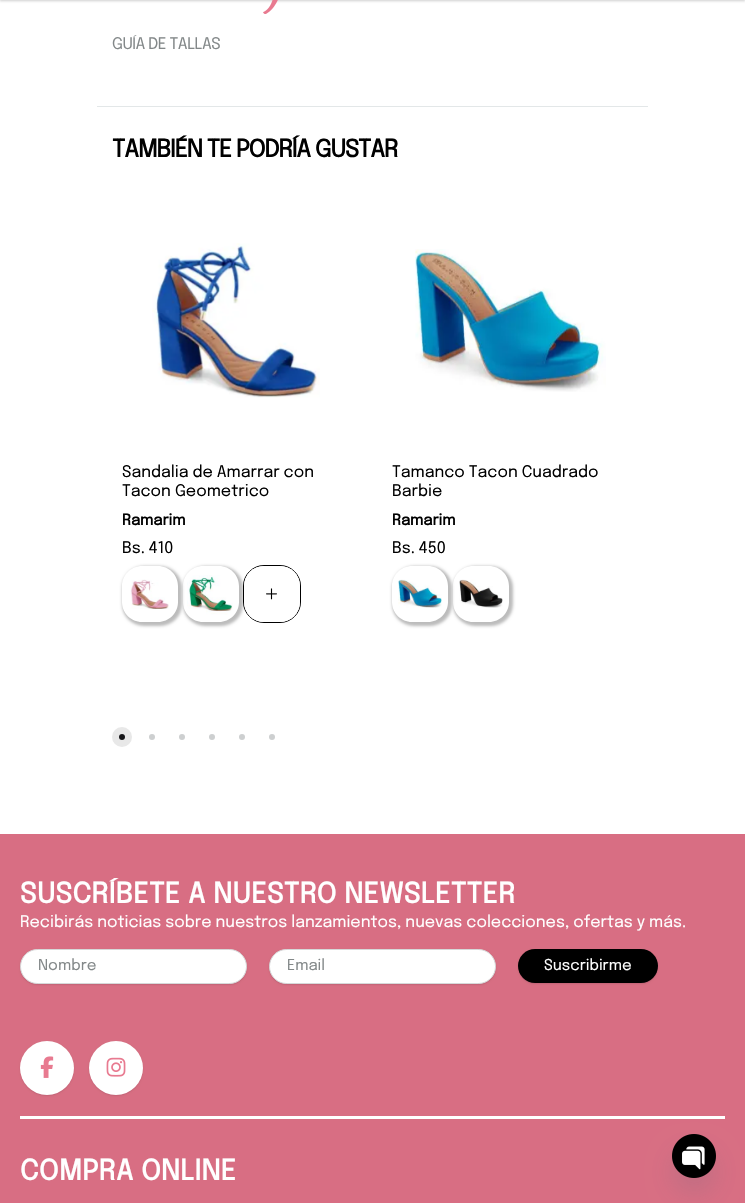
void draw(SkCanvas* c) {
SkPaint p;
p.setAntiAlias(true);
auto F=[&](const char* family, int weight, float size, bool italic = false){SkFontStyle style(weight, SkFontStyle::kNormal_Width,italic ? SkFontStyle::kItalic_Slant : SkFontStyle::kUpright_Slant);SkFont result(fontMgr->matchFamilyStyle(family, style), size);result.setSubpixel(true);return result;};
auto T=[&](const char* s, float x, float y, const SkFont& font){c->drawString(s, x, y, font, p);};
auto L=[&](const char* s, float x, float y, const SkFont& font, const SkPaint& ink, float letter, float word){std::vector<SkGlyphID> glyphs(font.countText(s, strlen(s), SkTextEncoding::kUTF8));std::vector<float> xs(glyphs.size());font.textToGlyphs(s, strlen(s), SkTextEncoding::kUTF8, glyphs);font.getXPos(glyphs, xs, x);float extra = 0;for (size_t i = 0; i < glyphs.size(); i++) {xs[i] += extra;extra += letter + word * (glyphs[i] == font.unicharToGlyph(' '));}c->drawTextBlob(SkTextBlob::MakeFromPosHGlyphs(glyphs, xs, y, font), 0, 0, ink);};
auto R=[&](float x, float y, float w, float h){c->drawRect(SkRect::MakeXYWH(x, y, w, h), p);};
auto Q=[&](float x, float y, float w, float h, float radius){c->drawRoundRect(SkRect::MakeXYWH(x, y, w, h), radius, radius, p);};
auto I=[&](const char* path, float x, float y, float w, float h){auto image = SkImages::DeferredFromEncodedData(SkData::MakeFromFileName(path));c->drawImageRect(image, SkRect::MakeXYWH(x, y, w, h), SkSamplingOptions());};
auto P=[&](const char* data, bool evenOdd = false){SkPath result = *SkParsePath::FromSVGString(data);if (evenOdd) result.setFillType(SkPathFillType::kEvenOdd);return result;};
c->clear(0xffffffff);
p.setColor(0x1a000000);
p.setMaskFilter(SkMaskFilter::MakeBlur(kNormal_SkBlurStyle, 1));
c->drawRect(SkRect::MakeXYWH(0,-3,745,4),p);
p.setMaskFilter(nullptr);
p.setColor(0x0d000000);
p.setMaskFilter(SkMaskFilter::MakeBlur(kNormal_SkBlurStyle, 1));
c->drawRect(SkRect::MakeXYWH(0,-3,745,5),p);
p.setMaskFilter(nullptr);
I("1.png",263,0,15,14);
auto f1 = F("Epilogue",400,16);
p.setColor(0xff838889);
L("GUÍA DE TALLAS",112,49,f1,p,-.5,0);
p.setColor(0xffe3e7e8);
R(97,106,551,1);
auto f2 = F("Epilogue",700,24);
p.setColor(0xff000000);
L("TAMBIÉN TE PODRÍA GUSTAR",112,157,f2,p,-1,0);
I("2.png",152,243,168,155);
T("Sandalia de Amarrar con",122,477,f1);
T("Tacon Geometrico",122,496,f1);
auto f3 = F("Epilogue",700,15);
T("Ramarim",122,525,f3);
T("Bs. 410",122,553,f1);
c->save();
c->clipPath(P("M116 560h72v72h-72zm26 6h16c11 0 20 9 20 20v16c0 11-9 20-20 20h-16c-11 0-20-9-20-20v-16c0-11 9-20 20-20z",true),true);
p.setColor(0xffbcbcbc);
p.setMaskFilter(SkMaskFilter::MakeBlur(kNormal_SkBlurStyle, 1.5));
c->drawRoundRect(SkRect::MakeXYWH(122,566,60,60),22,22,p);
p.setMaskFilter(nullptr);
c->restore();
I("3.png",130,579,39,30);
c->save();
c->clipPath(P("M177 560h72v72h-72zm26 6h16c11 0 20 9 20 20v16c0 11-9 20-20 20h-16c-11 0-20-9-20-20v-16c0-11 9-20 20-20z",true),true);
p.setMaskFilter(SkMaskFilter::MakeBlur(kNormal_SkBlurStyle, 1.5));
c->drawRoundRect(SkRect::MakeXYWH(183,566,60,60),22,22,p);
p.setMaskFilter(nullptr);
c->restore();
I("4.png",187,575,46,40);
p.setStroke(true);
p.setStrokeWidth(1);
p.setColor(0xff000000);
c->drawRoundRect(SkRect::MakeXYWH(243.5,565.5,57,57),20.5,20.5,p);
p.setStroke(false);
p.setColor(0xffffffff);
Q(244,566,56,56,20);
I("5.png",266,588,11,12);
I("6.png",415,249,191,143);
p.setColor(0xff000000);
T("Tamanco Tacon Cuadrado",392,477,f1);
T("Barbie",392,496,f1);
T("Ramarim",392,525,f3);
T("Bs. 450",392,553,f1);
c->save();
c->clipPath(P("M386 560h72v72h-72zm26 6h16c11 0 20 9 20 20v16c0 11-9 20-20 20h-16c-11 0-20-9-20-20v-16c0-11 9-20 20-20z",true),true);
p.setColor(0xffbcbcbc);
p.setMaskFilter(SkMaskFilter::MakeBlur(kNormal_SkBlurStyle, 1.5));
c->drawRoundRect(SkRect::MakeXYWH(392,566,60,60),22,22,p);
p.setMaskFilter(nullptr);
c->restore();
I("7.png",398,579,44,29);
c->save();
c->clipPath(P("M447 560h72v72h-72zm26 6h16c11 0 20 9 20 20v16c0 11-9 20-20 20h-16c-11 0-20-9-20-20v-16c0-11 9-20 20-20z",true),true);
p.setMaskFilter(SkMaskFilter::MakeBlur(kNormal_SkBlurStyle, 1.5));
c->drawRoundRect(SkRect::MakeXYWH(453,566,60,60),22,22,p);
p.setMaskFilter(nullptr);
c->restore();
I("8.png",459,579,44,29);
p.setStroke(true);
p.setStrokeWidth(7);
p.setColor(0xffe8e8e8);
c->drawCircle(122,737,6.5,p);
p.setStroke(false);
p.setColor(0xff161619);
c->drawCircle(122,737,3,p);
p.setColor(0xffcdcfd0);
c->drawCircle(152,737,3,p);
c->drawCircle(182,737,3,p);
c->drawCircle(212,737,3,p);
c->drawCircle(242,737,3,p);
c->drawCircle(272,737,3,p);
p.setColor(0xffd86e83);
R(0,834,745,369);
auto f4 = F("Epilogue",700,28);
p.setColor(0xffffffff);
L("SUSCRÍBETE A NUESTRO NEWSLETTER",20,903,f4,p,.5,0);
T("Recibirás noticias sobre nuestros lanzamientos, nuevas colecciones, ofertas y más.",20,927,f1);
p.setColor(0x0d000000);
p.setMaskFilter(SkMaskFilter::MakeBlur(kNormal_SkBlurStyle, 1));
c->drawRoundRect(SkRect::MakeXYWH(20,950,227,35),17.5,17.5,p);
p.setMaskFilter(nullptr);
p.setMaskFilter(SkMaskFilter::MakeBlur(kNormal_SkBlurStyle, .5));
c->drawRoundRect(SkRect::MakeXYWH(20,950,227,35),17.5,17.5,p);
p.setMaskFilter(nullptr);
p.setColor(0xffffffff);
c->drawRoundRect(SkRect::MakeXYWH(20.5,949.5,226,34),17,17,p);
p.setStroke(true);
p.setStrokeWidth(1);
p.setColor(0xffd6d8d9);
c->drawRoundRect(SkRect::MakeXYWH(20.5,949.5,226,34),17,17,p);
auto f5 = F("Epilogue",400,15);
p.setStroke(false);
p.setColor(0xff838889);
T("Nombre",38,970,f5);
p.setColor(0x0d000000);
p.setMaskFilter(SkMaskFilter::MakeBlur(kNormal_SkBlurStyle, 1));
c->drawRoundRect(SkRect::MakeXYWH(269,950,227,35),17.5,17.5,p);
p.setMaskFilter(nullptr);
p.setMaskFilter(SkMaskFilter::MakeBlur(kNormal_SkBlurStyle, .5));
c->drawRoundRect(SkRect::MakeXYWH(269,950,227,35),17.5,17.5,p);
p.setMaskFilter(nullptr);
p.setColor(0xffffffff);
c->drawRoundRect(SkRect::MakeXYWH(269.5,949.5,226,34),17,17,p);
p.setStroke(true);
p.setColor(0xffd6d8d9);
c->drawRoundRect(SkRect::MakeXYWH(269.5,949.5,226,34),17,17,p);
p.setStroke(false);
p.setColor(0xff838889);
T("Email",287,970,f5);
p.setColor(0x0d000000);
p.setMaskFilter(SkMaskFilter::MakeBlur(kNormal_SkBlurStyle, 1));
c->drawRoundRect(SkRect::MakeXYWH(518,950,140,34),17,17,p);
p.setMaskFilter(nullptr);
p.setMaskFilter(SkMaskFilter::MakeBlur(kNormal_SkBlurStyle, .5));
c->drawRoundRect(SkRect::MakeXYWH(518,950,140,34),17,17,p);
p.setMaskFilter(nullptr);
p.setColor(0xff000000);
Q(518,949,140,34,17);
p.setColor(0xffffffff);
T("Suscribirme",544,970,f5);
p.setColor(0x0d000000);
p.setMaskFilter(SkMaskFilter::MakeBlur(kNormal_SkBlurStyle, 1));
c->drawRoundRect(SkRect::MakeXYWH(20,1042,54,54),27,27,p);
p.setMaskFilter(nullptr);
p.setMaskFilter(SkMaskFilter::MakeBlur(kNormal_SkBlurStyle, .5));
c->drawRoundRect(SkRect::MakeXYWH(20,1042,54,54),27,27,p);
p.setMaskFilter(nullptr);
p.setColor(0xffffffff);
c->drawCircle(47,1068,27,p);
I("9.png",40,1056,14,22);
p.setColor(0x0d000000);
p.setMaskFilter(SkMaskFilter::MakeBlur(kNormal_SkBlurStyle, 1));
c->drawRoundRect(SkRect::MakeXYWH(89,1042,54,54),27,27,p);
p.setMaskFilter(nullptr);
p.setMaskFilter(SkMaskFilter::MakeBlur(kNormal_SkBlurStyle, .5));
c->drawRoundRect(SkRect::MakeXYWH(89,1042,54,54),27,27,p);
p.setMaskFilter(nullptr);
p.setColor(0xffffffff);
c->drawCircle(116,1068,27,p);
I("10.png",106,1057,20,20);
R(20,1116,705,3);
L("COMPRA ONLINE",20,1180,f4,p,.5,0);
p.setColor(0x2949687e);
p.setMaskFilter(SkMaskFilter::MakeBlur(kNormal_SkBlurStyle, 12));
c->drawRoundRect(SkRect::MakeXYWH(672,1150,44,44),22,22,p);
p.setMaskFilter(nullptr);
I("11.png",672,1134,44,44);
}
